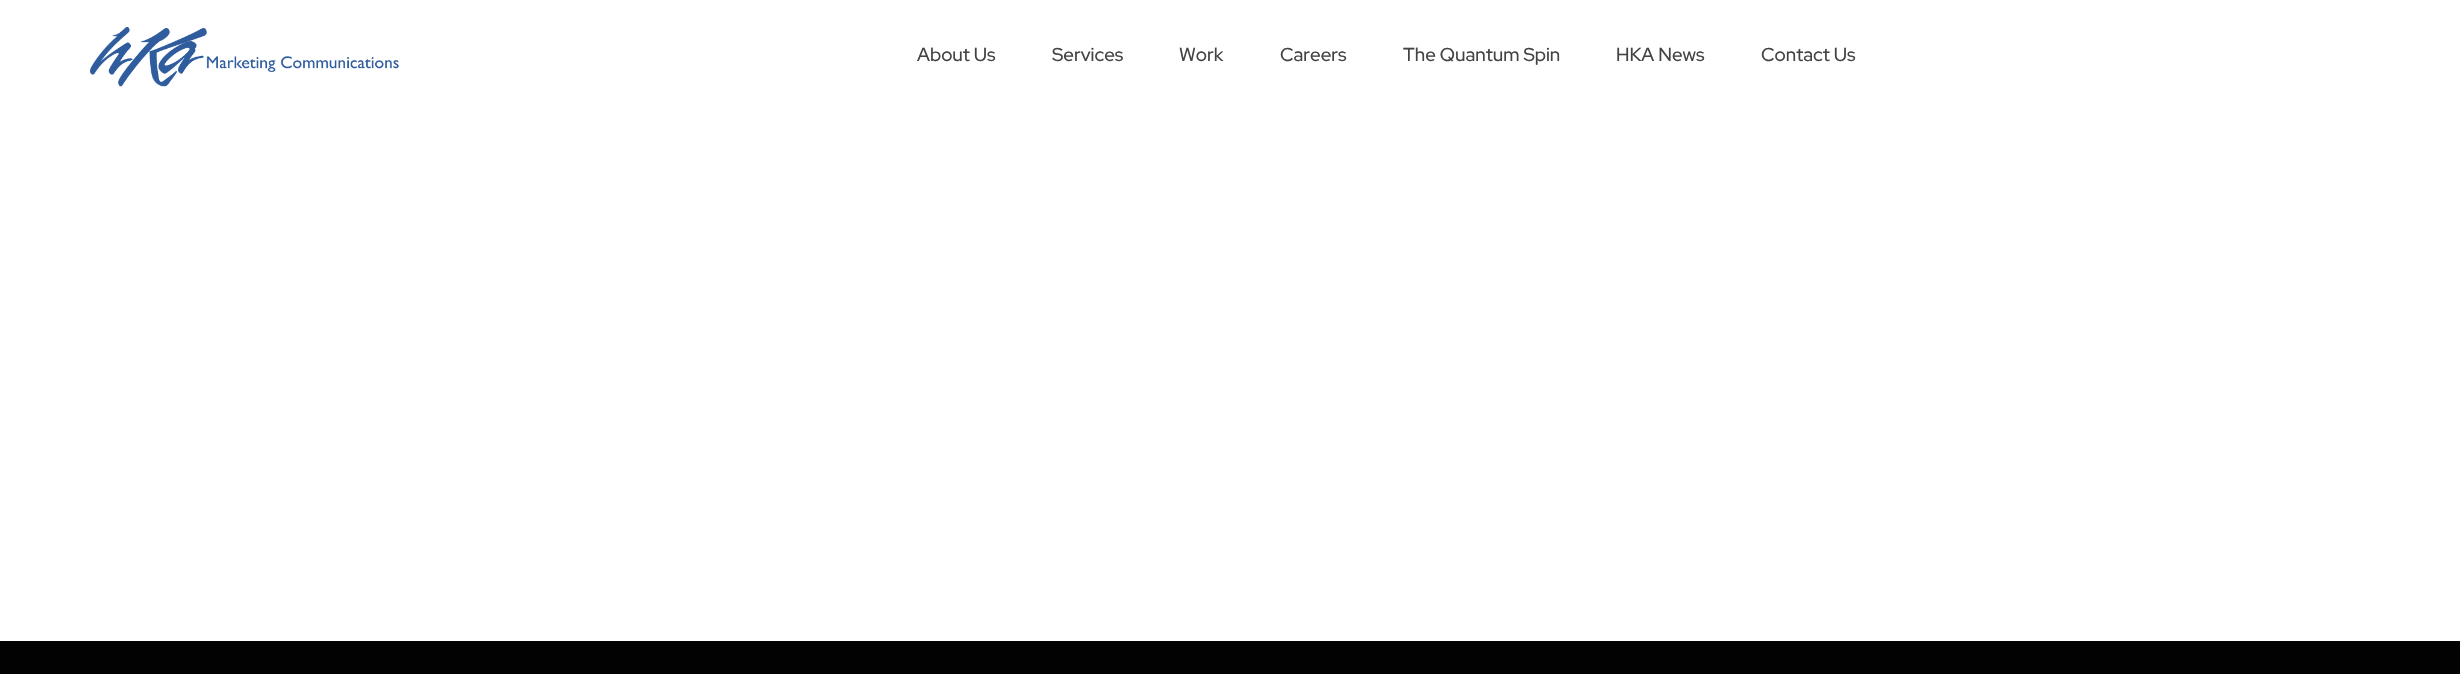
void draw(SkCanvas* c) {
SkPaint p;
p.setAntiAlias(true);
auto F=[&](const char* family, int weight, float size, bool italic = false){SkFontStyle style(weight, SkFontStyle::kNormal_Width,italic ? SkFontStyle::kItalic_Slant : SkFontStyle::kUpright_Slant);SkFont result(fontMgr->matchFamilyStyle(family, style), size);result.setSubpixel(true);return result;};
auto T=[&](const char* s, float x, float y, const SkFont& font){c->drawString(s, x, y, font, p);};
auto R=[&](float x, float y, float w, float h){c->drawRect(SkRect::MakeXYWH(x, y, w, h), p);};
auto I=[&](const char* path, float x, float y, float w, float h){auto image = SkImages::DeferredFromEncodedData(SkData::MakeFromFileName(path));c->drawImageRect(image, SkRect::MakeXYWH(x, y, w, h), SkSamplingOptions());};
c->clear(0xffffffff);
I("1.png",90,27,309,60);
auto f1 = F("Red Hat Display",500,18.75);
p.setColor(0xff444444);
T("About Us",917,61,f1);
T("Services",1052,61,f1);
T("Work",1179,61,f1);
T("Careers",1280,61,f1);
T("The Quantum Spin",1403,61,f1);
T("HKA News",1616,61,f1);
T("Contact Us",1761,61,f1);
p.setColor(0xff020202);
R(0,641,2460,33);
}
